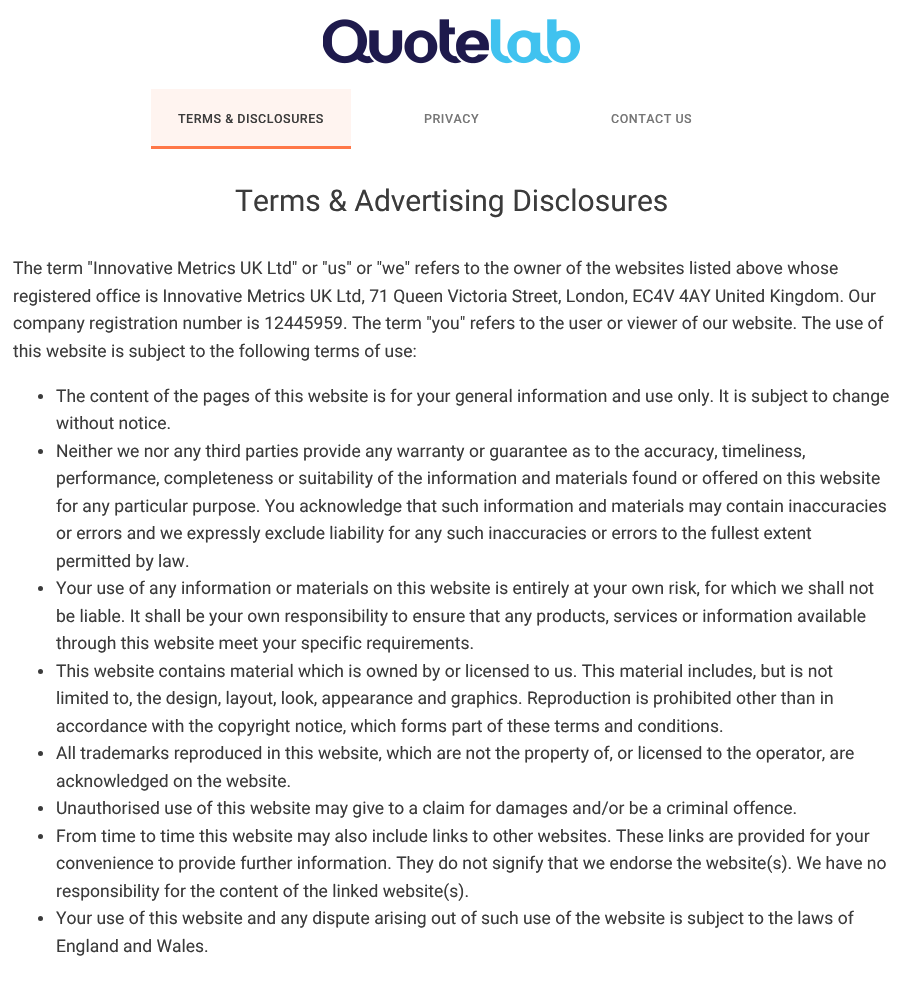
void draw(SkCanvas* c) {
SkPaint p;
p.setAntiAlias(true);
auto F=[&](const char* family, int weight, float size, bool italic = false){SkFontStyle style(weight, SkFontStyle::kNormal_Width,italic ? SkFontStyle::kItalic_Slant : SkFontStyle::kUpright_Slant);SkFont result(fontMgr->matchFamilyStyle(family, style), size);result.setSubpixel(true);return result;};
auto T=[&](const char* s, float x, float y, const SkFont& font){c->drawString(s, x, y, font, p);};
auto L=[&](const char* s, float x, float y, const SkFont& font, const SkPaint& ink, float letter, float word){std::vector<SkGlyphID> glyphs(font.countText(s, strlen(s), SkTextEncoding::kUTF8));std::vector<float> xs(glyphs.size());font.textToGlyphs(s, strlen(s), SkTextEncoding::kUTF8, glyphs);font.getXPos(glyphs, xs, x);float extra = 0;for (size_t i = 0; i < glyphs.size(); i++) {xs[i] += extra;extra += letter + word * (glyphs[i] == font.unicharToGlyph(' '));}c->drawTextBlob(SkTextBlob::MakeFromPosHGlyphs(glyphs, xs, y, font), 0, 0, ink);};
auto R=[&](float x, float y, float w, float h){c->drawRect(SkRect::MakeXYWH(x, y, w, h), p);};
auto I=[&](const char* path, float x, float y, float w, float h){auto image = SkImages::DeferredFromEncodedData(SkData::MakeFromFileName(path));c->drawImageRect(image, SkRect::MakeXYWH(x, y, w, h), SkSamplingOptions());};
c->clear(0xffffffff);
I("1.png",323,19,257,45);
p.setColor(0xfffff4f0);
R(151,89,200,57);
auto f1 = F("Roboto",500,12.5);
p.setColor(0xff3b3b3b);
L("TERMS & DISCLOSURES",178,123,f1,p,.5,0);
p.setColor(0xff767676);
L("PRIVACY",424,123,f1,p,.5,0);
L("CONTACT US",611,123,f1,p,.5,0);
p.setColor(0xffff7748);
R(151,146,200,3);
auto f2 = F("Roboto",400,30);
p.setColor(0xff3b3b3b);
T("Terms & Advertising Disclosures",235,211,f2);
auto f3 = F("Roboto",400,17.5);
T("The term \"Innovative Metrics UK Ltd\" or \"us\" or \"we\" refers to the owner of the websites listed above whose",13,274,f3);
T("registered office is Innovative Metrics UK Ltd, 71 Queen Victoria Street, London, EC4V 4AY United Kingdom. Our",13,302,f3);
T("company registration number is 12445959. The term \"you\" refers to the user or viewer of our website. The use of",13,329,f3);
T("this website is subject to the following terms of use:",13,357,f3);
c->drawCircle(40.5,396.5,2.5,p);
T("The content of the pages of this website is for your general information and use only. It is subject to change",56,402,f3);
T("without notice.",56,429,f3);
c->drawCircle(40.5,451.5,2.5,p);
T("Neither we nor any third parties provide any warranty or guarantee as to the accuracy, timeliness,",56,457,f3);
T("performance, completeness or suitability of the information and materials found or offered on this website",56,484,f3);
T("for any particular purpose. You acknowledge that such information and materials may contain inaccuracies",56,512,f3);
T("or errors and we expressly exclude liability for any such inaccuracies or errors to the fullest extent",56,539,f3);
T("permitted by law.",56,567,f3);
c->drawCircle(40.5,588.5,2.5,p);
T("Your use of any information or materials on this website is entirely at your own risk, for which we shall not",56,594,f3);
T("be liable. It shall be your own responsibility to ensure that any products, services or information available",56,622,f3);
T("through this website meet your specific requirements.",56,649,f3);
c->drawCircle(40.5,671.5,2.5,p);
T("This website contains material which is owned by or licensed to us. This material includes, but is not",56,677,f3);
T("limited to, the design, layout, look, appearance and graphics. Reproduction is prohibited other than in",56,704,f3);
T("accordance with the copyright notice, which forms part of these terms and conditions.",56,732,f3);
c->drawCircle(40.5,753.5,2.5,p);
T("All trademarks reproduced in this website, which are not the property of, or licensed to the operator, are",56,759,f3);
T("acknowledged on the website.",56,787,f3);
c->drawCircle(40.5,808.5,2.5,p);
T("Unauthorised use of this website may give to a claim for damages and/or be a criminal offence.",56,814,f3);
c->drawCircle(40.5,836.5,2.5,p);
T("From time to time this website may also include links to other websites. These links are provided for your",56,842,f3);
T("convenience to provide further information. They do not signify that we endorse the website(s). We have no",56,869,f3);
T("responsibility for the content of the linked website(s).",56,897,f3);
c->drawCircle(40.5,918.5,2.5,p);
T("Your use of this website and any dispute arising out of such use of the website is subject to the laws of",56,924,f3);
T("England and Wales.",56,952,f3);
}
